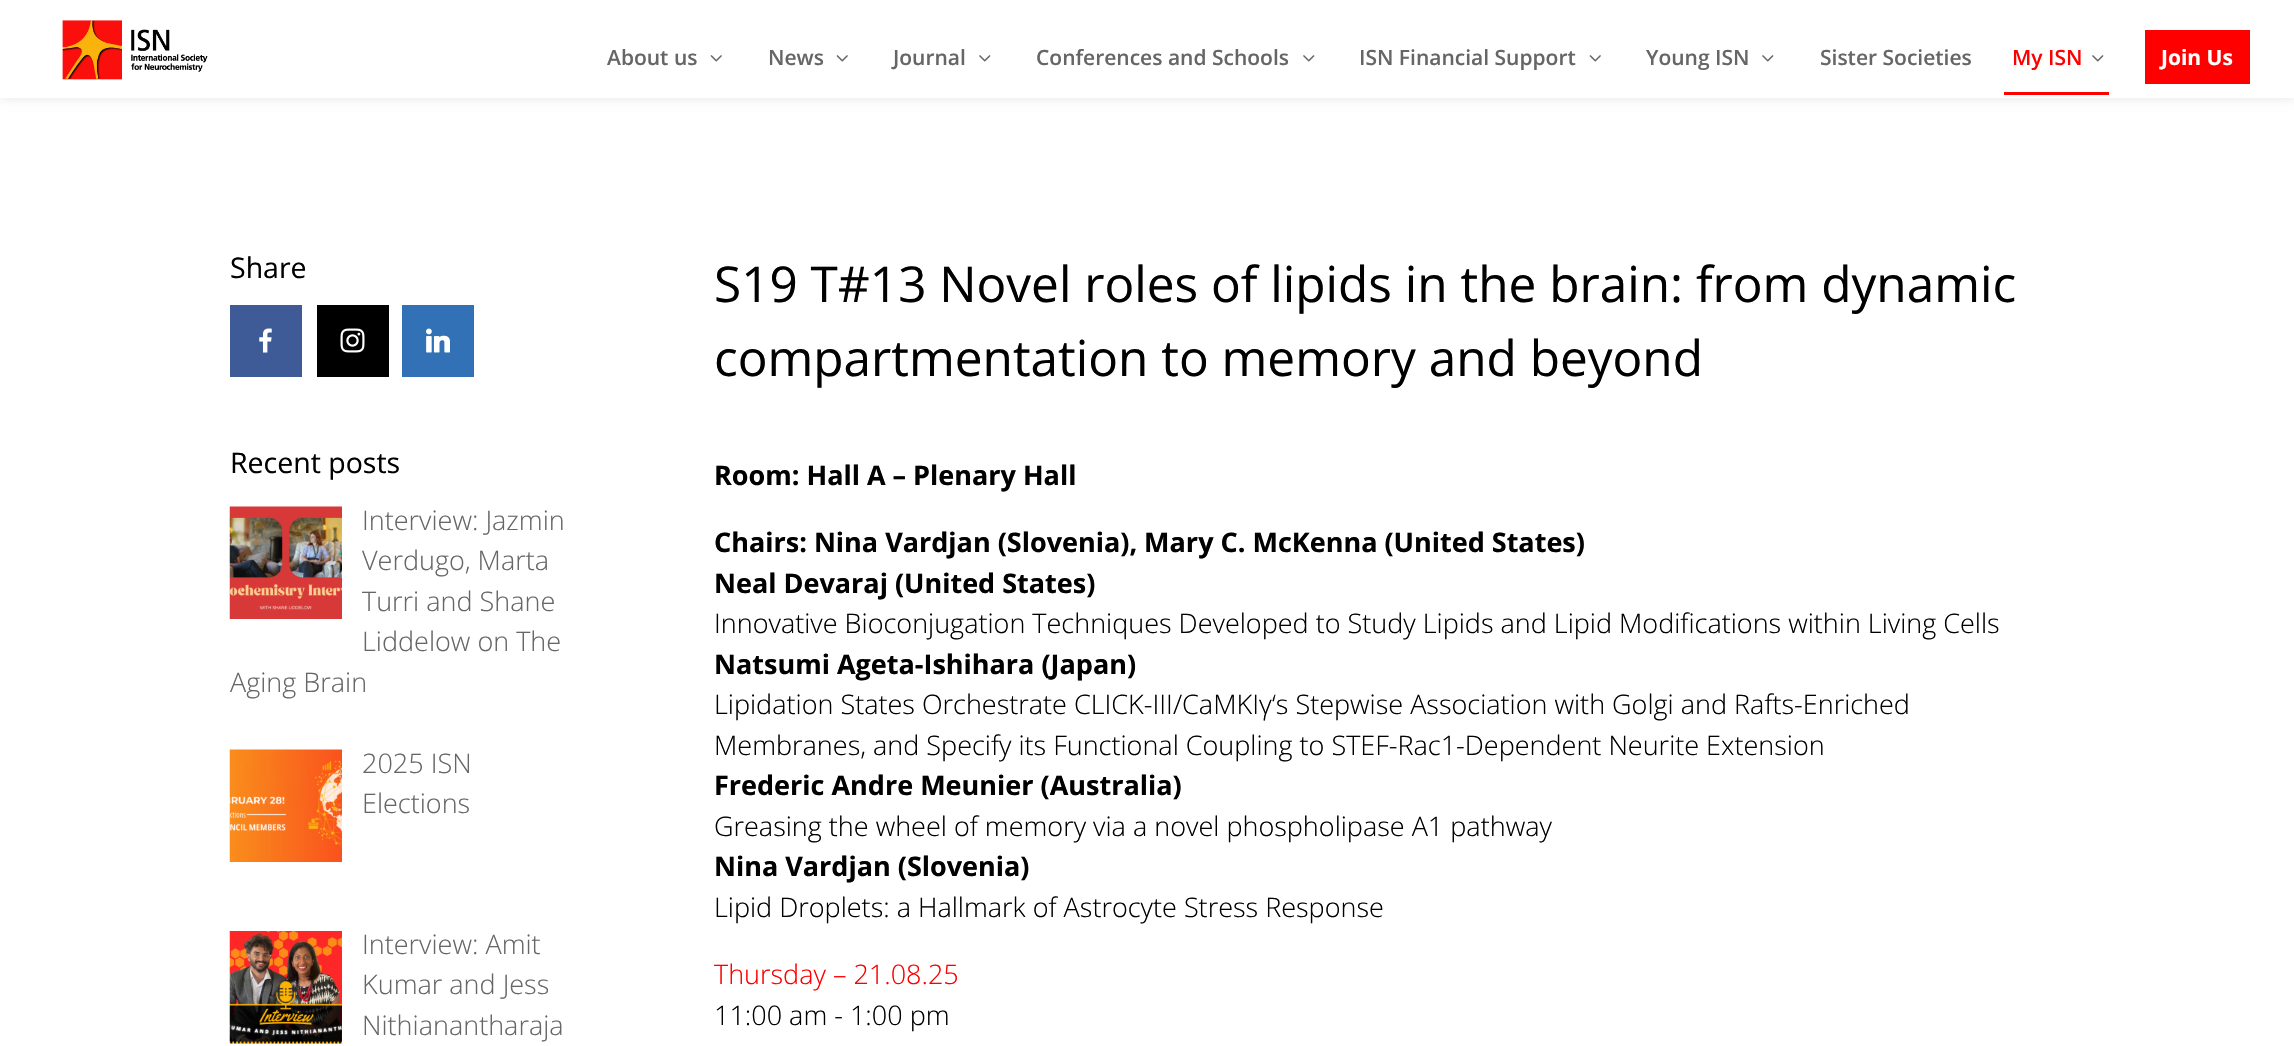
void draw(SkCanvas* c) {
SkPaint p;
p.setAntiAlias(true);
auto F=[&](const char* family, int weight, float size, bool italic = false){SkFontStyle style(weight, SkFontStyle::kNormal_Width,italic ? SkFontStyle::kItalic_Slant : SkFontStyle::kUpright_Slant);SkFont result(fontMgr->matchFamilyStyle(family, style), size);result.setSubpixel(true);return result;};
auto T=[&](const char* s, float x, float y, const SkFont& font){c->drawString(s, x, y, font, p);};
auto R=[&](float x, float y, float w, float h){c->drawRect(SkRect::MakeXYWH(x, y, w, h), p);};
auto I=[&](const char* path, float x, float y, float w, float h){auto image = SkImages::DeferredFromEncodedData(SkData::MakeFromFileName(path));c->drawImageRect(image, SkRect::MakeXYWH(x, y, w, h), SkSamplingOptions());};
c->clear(0xffffffff);
p.setColor(0x1a000000);
p.setMaskFilter(SkMaskFilter::MakeBlur(kNormal_SkBlurStyle, 5));
c->drawRect(SkRect::MakeXYWH(0,0,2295,98),p);
p.setMaskFilter(nullptr);
p.setColor(0xffffffff);
R(0,0,2294,98);
I("1.png",62,20,146,60);
auto f1 = F("Open Sans",600,21);
p.setColor(0xff666666);
T("About us",607,65,f1);
I("2.png",710,55,12,7);
T("News",768,65,f1);
I("2.png",836,55,12,7);
T("Journal",893,65,f1);
I("3.png",979,55,12,7);
T("Conferences and Schools",1036,65,f1);
I("3.png",1303,55,12,7);
T("ISN Financial Support",1359,65,f1);
I("2.png",1589,55,12,7);
T("Young ISN",1646,65,f1);
I("3.png",1762,55,12,7);
T("Sister Societies",1820,65,f1);
p.setColor(0xffff0000);
T("My ISN",2012,65,f1);
R(2004,92,105,3);
I("3.png",2092,55,12,7);
R(2145,30,105,54);
auto f2 = F("Open Sans",700,21);
p.setColor(0xffffffff);
T("Join Us",2161,65,f2);
auto f3 = F("Open Sans",400,28.5);
p.setColor(0xff000000);
T("Share",230,278,f3);
p.setColor(0xff3e5b98);
R(230,305,72,72);
I("4.png",259,328,13,25);
p.setColor(0xff000000);
R(317,305,72,72);
I("5.png",340,328,25,25);
p.setColor(0xff3371b7);
R(402,305,72,72);
I("6.png",426,328,24,25);
p.setColor(0xff000000);
T("Recent posts",230,473,f3);
I("7.png",229,506,113,113);
auto f4 = F("Open Sans",300,27);
p.setColor(0xff666666);
T("Interview: Jazmin",362,530,f4);
T("Verdugo, Marta",362,570,f4);
T("Turri and Shane",362,611,f4);
T("Liddelow on The",362,651,f4);
T("Aging Brain",230,692,f4);
I("8.png",229,749,113,113);
T("2025 ISN",362,773,f4);
T("Elections",362,813,f4);
I("9.png",229,931,113,113);
T("Interview: Amit",362,954,f4);
T("Kumar and Jess",362,994,f4);
T("Nithianantharaja",362,1035,f4);
auto f5 = F("Open Sans",400,49.5);
p.setColor(0xff000000);
T("S19 T#13 Novel roles of lipids in the brain: from dynamic",714,302,f5);
T("compartmentation to memory and beyond",714,376,f5);
auto f6 = F("Open Sans",700,27);
T("Room: Hall A – Plenary Hall",714,485,f6);
T("Chairs: Nina Vardjan (Slovenia), Mary C. McKenna (United States)",714,552,f6);
T("Neal Devaraj (United States)",714,593,f6);
T("Innovative Bioconjugation Techniques Developed to Study Lipids and Lipid Modifications within Living Cells",714,633,f4);
T("Natsumi Ageta-Ishihara (Japan)",714,674,f6);
T("Lipidation States Orchestrate CLICK-III/CaMKIγ‘s Stepwise Association with Golgi and Rafts-Enriched",714,714,f4);
T("Membranes, and Specify its Functional Coupling to STEF-Rac1-Dependent Neurite Extension",714,755,f4);
T("Frederic Andre Meunier (Australia)",714,795,f6);
T("Greasing the wheel of memory via a novel phospholipase A1 pathway",714,836,f4);
T("Nina Vardjan (Slovenia)",714,876,f6);
T("Lipid Droplets: a Hallmark of Astrocyte Stress Response",714,917,f4);
p.setColor(0xffff0000);
T("Thursday – 21.08.25",714,984,f4);
p.setColor(0xff000000);
T("11:00 am - 1:00 pm",714,1025,f4);
}
